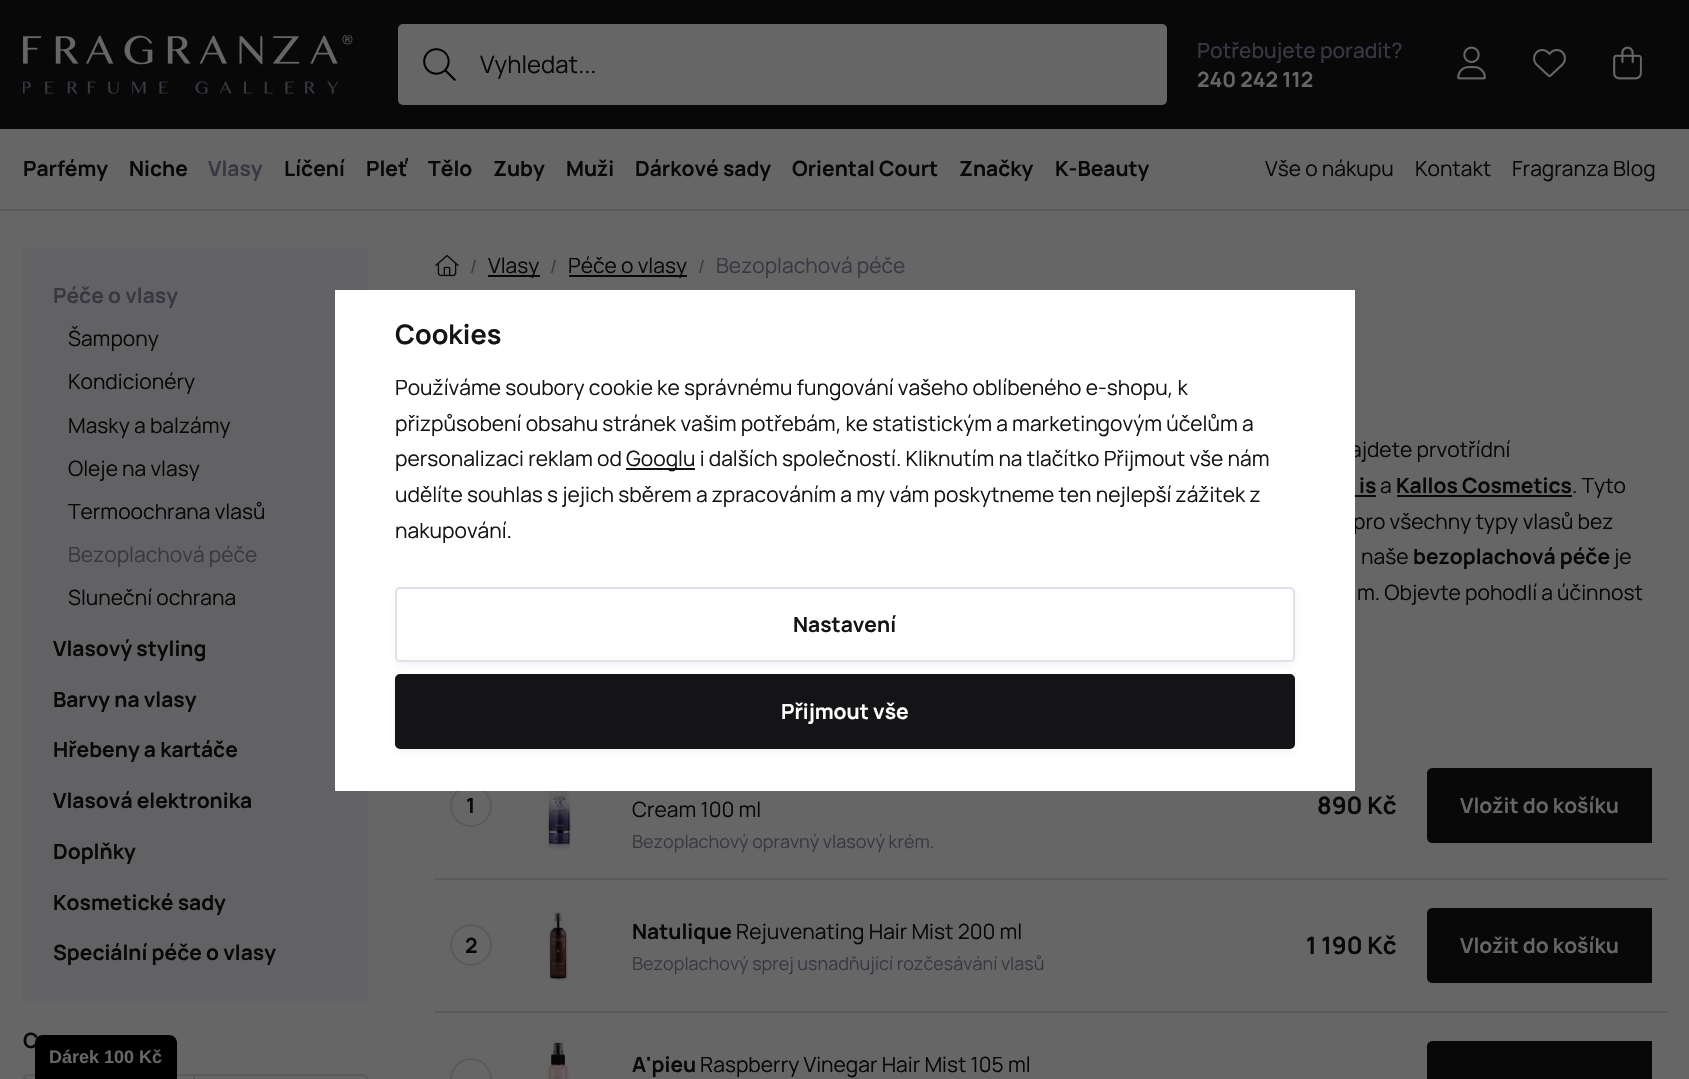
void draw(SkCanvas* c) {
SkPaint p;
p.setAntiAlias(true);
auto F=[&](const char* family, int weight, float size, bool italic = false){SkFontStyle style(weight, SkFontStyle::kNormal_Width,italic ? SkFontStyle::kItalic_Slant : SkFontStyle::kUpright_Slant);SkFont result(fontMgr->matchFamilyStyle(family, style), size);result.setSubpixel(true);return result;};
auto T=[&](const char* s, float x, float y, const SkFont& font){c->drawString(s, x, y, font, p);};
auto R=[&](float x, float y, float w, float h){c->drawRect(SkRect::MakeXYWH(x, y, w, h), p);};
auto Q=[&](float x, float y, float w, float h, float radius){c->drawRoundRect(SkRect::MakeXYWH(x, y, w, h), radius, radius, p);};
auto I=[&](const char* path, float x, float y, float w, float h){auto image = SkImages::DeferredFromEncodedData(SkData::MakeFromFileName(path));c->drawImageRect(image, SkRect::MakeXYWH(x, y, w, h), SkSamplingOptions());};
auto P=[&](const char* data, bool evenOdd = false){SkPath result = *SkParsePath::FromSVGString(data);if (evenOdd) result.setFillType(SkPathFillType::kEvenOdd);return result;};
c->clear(0xff666666);
p.setColor(0xff080809);
R(0,0,1689,129);
I("1.png",23,35,330,59);
p.setColor(0xff666666);
Q(398,24,769,81,5);
I("2.png",423,48,33,33);
auto f1 = F("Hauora",400,24);
p.setColor(0xff080809);
T("Vyhledat...",480,73,f1);
auto f2 = F("Hauora",500,21);
p.setColor(0xff383842);
T("Potřebujete poradit?",1197,58,f2);
auto f3 = F("Hauora",700,21);
p.setColor(0xff666666);
T("240 242 112",1197,87,f3);
I("3.png",1457,46,29,34);
I("4.png",1533,49,33,29);
I("5.png",1613,46,29,34);
p.setColor(0xff5a5a5e);
R(0,209,1689,2);
p.setColor(0xff080809);
T("Parfémy",23,176,f3);
T("Niche",129,176,f3);
p.setColor(0xff383842);
T("Vlasy",208,176,f3);
p.setColor(0xff080809);
T("Líčení",284,176,f3);
T("Pleť",366,176,f3);
T("Tělo",428,176,f3);
T("Zuby",493,176,f3);
T("Muži",566,176,f3);
T("Dárkové sady",635,176,f3);
T("Oriental Court",792,176,f3);
T("Značky",959,176,f3);
T("K-Beauty",1055,176,f3);
auto f4 = F("Hauora",400,21);
T("Vše o nákupu",1265,176,f4);
T("Kontakt",1415,176,f4);
T("Fragranza Blog",1512,176,f4);
p.setColor(0xff626264);
R(23,248,345,753);
p.setColor(0xff383842);
T("Péče o vlasy",53,303,f3);
p.setColor(0xff080809);
T("Šampony",68,346,f4);
T("Kondicionéry",68,389,f4);
T("Masky a balzámy",68,433,f4);
T("Oleje na vlasy",68,476,f4);
T("Termoochrana vlasů",68,519,f4);
p.setColor(0xff383842);
T("Bezoplachová péče",68,562,f4);
p.setColor(0xff080809);
T("Sluneční ochrana",68,605,f4);
T("Vlasový styling",53,656,f3);
T("Barvy na vlasy",53,707,f3);
T("Hřebeny a kartáče",53,757,f3);
T("Vlasová elektronika",53,808,f3);
T("Doplňky",53,859,f3);
T("Kosmetické sady",53,910,f3);
T("Speciální péče o vlasy",53,960,f3);
T("C",23,1048,f3);
p.setStroke(true);
p.setStrokeWidth(2);
p.setColor(0xff5a5a5e);
c->drawPath(P("M28 1075h166v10h-166c-2 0-4-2-4-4v-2c0-2 2-4 4-4z"),p);
p.setStroke(false);
c->drawPath(P("M195 1074h168c2 0 5 2 5 4v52c0 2-3 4-5 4h-168zm0 2h168c2 0 3 1 3 2v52c0 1-1 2-3 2h-168z",true),p);
I("6.png",435,255,24,22);
auto f5 = F("Hauora",400,18);
p.setColor(0xff383842);
T("/",470,273,f5);
p.setColor(0xff080809);
R(488,275,52,2);
T("Vlasy",488,273,f4);
p.setColor(0xff383842);
T("/",550,273,f5);
p.setColor(0xff080809);
R(569,275,118,2);
T("Péče o vlasy",568,273,f4);
p.setColor(0xff383842);
T("/",698,273,f5);
T("Bezoplachová péče",716,273,f4);
p.setColor(0xff080809);
T("ajdete prvotřídní",1350,457,f4);
T("is",1359,493,f3);
R(1355,495,21,2);
T("a",1380,493,f4);
T("Kallos Cosmetics",1396,493,f3);
R(1397,495,175,2);
T(". Tyto",1572,493,f4);
T("pro všechny typy vlasů bez",1353,529,f4);
T("naše",1361,564,f4);
T("bezoplachová péče",1413,564,f3);
T("je",1614,564,f4);
T("m. Objevte pohodlí a účinnost",1357,600,f4);
p.setColor(0xff5a5a5e);
R(435,878,1232,2);
p.setStroke(true);
c->drawCircle(471,806,20,p);
p.setStroke(false);
p.setColor(0xff080809);
T("1",466,813,f3);
I("7.png",542,791,34,58);
T("Cream 100 ml",632,817,f4);
p.setColor(0xff383842);
T("Bezoplachový opravný vlasový krém.",632,848,f5);
auto f6 = F("Hauora",700,24);
p.setColor(0xff080809);
T("890 Kč",1317,814,f6);
c->drawPath(P("M1432 769h219v73h-219c-2 0-4-2-4-4v-65c0-2 2-4 4-4z"),p);
p.setStroke(true);
c->drawPath(P("M1432 769h219v73h-219c-2 0-4-2-4-4v-65c0-2 2-4 4-4z"),p);
p.setStroke(false);
p.setColor(0xff666666);
T("Vložit do košíku",1460,813,f3);
p.setColor(0xff5a5a5e);
R(435,1011,1232,2);
p.setStroke(true);
c->drawCircle(471,945,20,p);
p.setStroke(false);
p.setColor(0xff080809);
T("2",465,953,f3);
I("8.png",543,910,27,74);
T("Natulique",632,939,f3);
T("Rejuvenating Hair Mist 200 ml",736,939,f4);
p.setColor(0xff383842);
T("Bezoplachový sprej usnadňující rozčesávání vlasů",632,970,f5);
p.setColor(0xff080809);
T("1 190 Kč",1306,954,f6);
c->drawPath(P("M1432 909h219v73h-219c-2 0-4-2-4-4v-65c0-2 2-4 4-4z"),p);
p.setStroke(true);
c->drawPath(P("M1432 909h219v73h-219c-2 0-4-2-4-4v-65c0-2 2-4 4-4z"),p);
p.setStroke(false);
p.setColor(0xff666666);
T("Vložit do košíku",1460,953,f3);
p.setStroke(true);
p.setColor(0xff5a5a5e);
c->drawCircle(471,1079,20,p);
I("9.png",537,1035,33,44);
p.setStroke(false);
p.setColor(0xff080809);
T("A'pieu",632,1072,f3);
T("Raspberry Vinegar Hair Mist 105 ml",700,1072,f4);
c->drawPath(P("M1432 1042h219v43h-219c-2 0-4-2-4-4v-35c0-2 2-4 4-4z"),p);
p.setStroke(true);
c->drawPath(P("M1432 1042h219v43h-219c-2 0-4-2-4-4v-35c0-2 2-4 4-4z"),p);
p.setStroke(false);
p.setColor(0xffffffff);
R(335,290,1020,501);
auto f7 = F("Hauora",700,27);
p.setColor(0xff141416);
T("Cookies",395,344,f7);
T("Používáme soubory cookie ke správnému fungování vašeho oblíbeného e-shopu, k",395,395,f4);
T("přizpůsobení obsahu stránek vašim potřebám, ke statistickým a marketingovým účelům a",395,431,f4);
T("personalizaci reklam od",395,466,f4);
R(626,468,69,2);
T("Googlu i dalších společností. Kliknutím na tlačítko Přijmout vše nám",626,466,f4);
T("udělíte souhlas s jejich sběrem a zpracováním a my vám poskytneme ten nejlepší zážitek z",395,502,f4);
T("nakupování.",395,538,f4);
p.setColor(0x0d141416);
p.setMaskFilter(SkMaskFilter::MakeBlur(kNormal_SkBlurStyle, 4));
c->drawRoundRect(SkRect::MakeXYWH(395,590,900,75),5,5,p);
p.setMaskFilter(nullptr);
p.setColor(0xffffffff);
c->drawRoundRect(SkRect::MakeXYWH(396,588,898,73),4,4,p);
p.setStroke(true);
p.setColor(0xffe1e1eb);
c->drawRoundRect(SkRect::MakeXYWH(396,588,898,73),4,4,p);
p.setStroke(false);
p.setColor(0xff141416);
T("Nastavení",793,632,f3);
p.setColor(0x0d141416);
p.setMaskFilter(SkMaskFilter::MakeBlur(kNormal_SkBlurStyle, 4));
c->drawRoundRect(SkRect::MakeXYWH(395,677,900,75),5,5,p);
p.setMaskFilter(nullptr);
p.setColor(0xff141416);
c->drawRoundRect(SkRect::MakeXYWH(396,675,898,73),4,4,p);
p.setStroke(true);
c->drawRoundRect(SkRect::MakeXYWH(396,675,898,73),4,4,p);
p.setStroke(false);
p.setColor(0xffffffff);
T("Přijmout vše",781,719,f3);
p.setColor(0xff000000);
c->drawPath(P("M43 1035h126c4.5 0 8 3.5 8 8v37h-142v-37c0-4.5 3.5-8 8-8z"),p);
auto f8 = F("Liberation Sans",700,18);
p.setColor(0xff666666);
T("Dárek 100 Kč",49,1063,f8);
}
